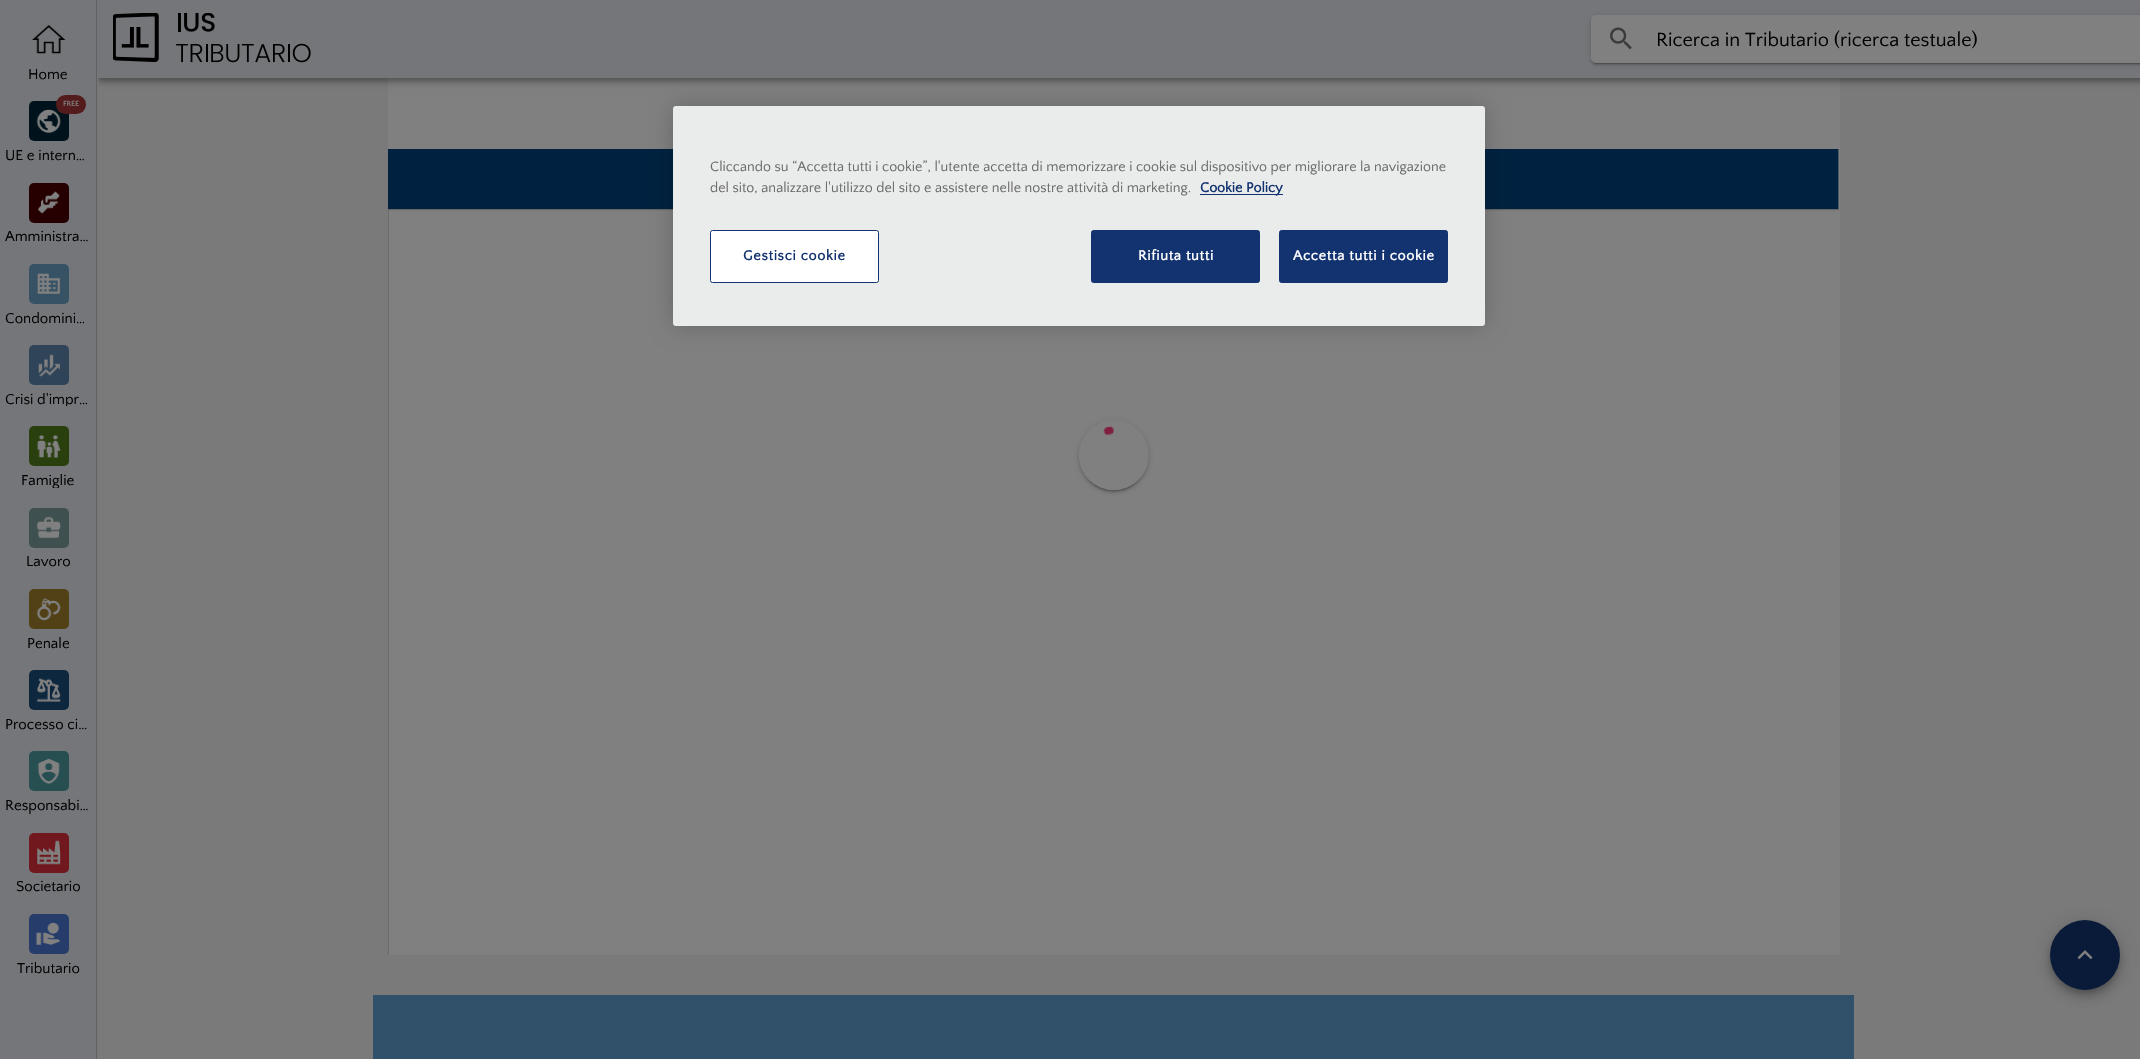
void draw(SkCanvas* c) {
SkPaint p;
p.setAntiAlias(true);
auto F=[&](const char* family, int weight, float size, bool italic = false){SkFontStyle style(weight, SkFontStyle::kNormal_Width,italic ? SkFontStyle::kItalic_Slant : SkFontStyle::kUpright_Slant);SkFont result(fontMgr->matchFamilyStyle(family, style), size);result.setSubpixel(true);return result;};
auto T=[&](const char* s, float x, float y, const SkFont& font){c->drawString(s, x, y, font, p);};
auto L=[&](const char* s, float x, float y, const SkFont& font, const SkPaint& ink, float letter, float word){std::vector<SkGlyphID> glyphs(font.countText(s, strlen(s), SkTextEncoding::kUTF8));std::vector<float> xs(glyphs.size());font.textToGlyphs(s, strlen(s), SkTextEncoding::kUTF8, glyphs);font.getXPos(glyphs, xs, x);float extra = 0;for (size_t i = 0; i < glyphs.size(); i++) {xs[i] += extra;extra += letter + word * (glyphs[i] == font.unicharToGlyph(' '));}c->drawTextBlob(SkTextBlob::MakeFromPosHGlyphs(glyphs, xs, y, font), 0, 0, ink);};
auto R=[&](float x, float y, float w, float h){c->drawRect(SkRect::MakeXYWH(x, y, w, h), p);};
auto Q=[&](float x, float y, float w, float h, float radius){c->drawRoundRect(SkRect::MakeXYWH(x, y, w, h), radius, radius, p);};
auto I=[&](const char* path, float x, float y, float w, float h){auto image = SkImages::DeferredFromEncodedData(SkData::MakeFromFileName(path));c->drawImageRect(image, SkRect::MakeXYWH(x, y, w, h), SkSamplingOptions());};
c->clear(0xff7a7a7a);
I("15.png",388,78,1452,877);
p.setColor(0x24000000);
p.setMaskFilter(SkMaskFilter::MakeBlur(kNormal_SkBlurStyle, 3));
c->drawRect(SkRect::MakeXYWH(98,5,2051,78),p);
p.setMaskFilter(nullptr);
p.setColor(0x1f000000);
p.setMaskFilter(SkMaskFilter::MakeBlur(kNormal_SkBlurStyle, 6));
c->drawRect(SkRect::MakeXYWH(98,1,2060,78),p);
p.setMaskFilter(nullptr);
p.setColor(0x33000000);
p.setMaskFilter(SkMaskFilter::MakeBlur(kNormal_SkBlurStyle, 2.5));
c->drawRect(SkRect::MakeXYWH(98,3,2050,77),p);
p.setMaskFilter(nullptr);
p.setColor(0xff747679);
R(98,0,2042,78);
I("1.png",113,13,198,50);
p.setColor(0x1f000000);
p.setMaskFilter(SkMaskFilter::MakeBlur(kNormal_SkBlurStyle, 3));
c->drawRoundRect(SkRect::MakeXYWH(1591,16,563,48),5,5,p);
p.setMaskFilter(nullptr);
p.setColor(0x24000000);
p.setMaskFilter(SkMaskFilter::MakeBlur(kNormal_SkBlurStyle, 1));
c->drawRoundRect(SkRect::MakeXYWH(1591,18,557,47),5,5,p);
p.setMaskFilter(nullptr);
p.setColor(0x33000000);
p.setMaskFilter(SkMaskFilter::MakeBlur(kNormal_SkBlurStyle, .5));
c->drawRoundRect(SkRect::MakeXYWH(1594,21,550,43),2.5,2.5,p);
p.setMaskFilter(nullptr);
p.setColor(0xff808080);
Q(1591,15,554,48,5);
I("2.png",1610,27,22,23);
auto f1 = F("Quattrocento Sans",400,20);
p.setColor(0xff000000);
T("Ricerca in Tributario (ricerca testuale)",1656,46,f1);
p.setColor(0xff747679);
R(0,0,98,1059);
p.setColor(0xff606264);
R(96,0,1,1059);
I("3.png",31,25,35,29);
auto f2 = F("Quattrocento Sans",400,15);
p.setColor(0xff000000);
T("Home",28,79,f2);
p.setColor(0xff00131c);
Q(29,101,40,40,5);
I("4.png",36,109,25,24);
p.setColor(0xff531b1b);
Q(56,95,30,19,9.5);
auto f3 = F("Quattrocento Sans",700,7.5);
p.setColor(0xff808080);
T("FREE",63,106,f3);
p.setColor(0xff000000);
T("UE e intern…",5,160,f2);
p.setColor(0xff260000);
Q(29,183,40,40,5);
I("5.png",38,191,22,23);
p.setColor(0xff000000);
T("Amministra…",5,241,f2);
p.setColor(0xff375265);
Q(29,264,40,40,5);
I("6.png",37,273,24,21);
p.setColor(0xff000000);
T("Condomini…",5,323,f2);
p.setColor(0xff2f4359);
Q(29,345,40,40,5);
I("7.png",38,354,22,23);
c->save();
c->clipRect(SkRect::MakeXYWH(0,391,96,15));
p.setColor(0xff000000);
T("Crisi d'impr…",5,404,f2);
c->restore();
p.setColor(0xff29400e);
Q(29,426,40,40,5);
I("8.png",36,435,25,23);
c->save();
c->clipRect(SkRect::MakeXYWH(0,473,96,15));
p.setColor(0xff000000);
T("Famiglie",21,485,f2);
c->restore();
p.setColor(0xff3f5050);
Q(29,508,40,40,5);
I("9.png",37,516,24,22);
p.setColor(0xff000000);
T("Lavoro",26,566,f2);
p.setColor(0xff524016);
Q(29,589,40,40,5);
I("10.png",36,598,25,23);
p.setColor(0xff000000);
T("Penale",27,648,f2);
p.setColor(0xff0d273e);
Q(29,670,40,40,5);
I("11.png",37,677,24,25);
p.setColor(0xff000000);
T("Processo ci…",5,729,f2);
p.setColor(0xff274e51);
Q(29,751,40,40,5);
I("12.png",37,758,23,26);
p.setColor(0xff000000);
T("Responsabi…",5,810,f2);
p.setColor(0xff70181d);
Q(29,833,40,40,5);
I("13.png",37,840,24,25);
p.setColor(0xff000000);
T("Societario",16,891,f2);
p.setColor(0xff263d6b);
Q(29,914,40,40,5);
I("14.png",35,922,26,23);
p.setColor(0xff000000);
T("Tributario",17,973,f2);
p.setColor(0xff31516b);
R(373,995,1481,64);
p.setColor(0x1f000000);
p.setMaskFilter(SkMaskFilter::MakeBlur(kNormal_SkBlurStyle, 11));
c->drawRoundRect(SkRect::MakeXYWH(2050,921,70,70),35,35,p);
p.setMaskFilter(nullptr);
p.setColor(0x24000000);
p.setMaskFilter(SkMaskFilter::MakeBlur(kNormal_SkBlurStyle, 6));
c->drawRoundRect(SkRect::MakeXYWH(2050,928,70,70),35,35,p);
p.setMaskFilter(nullptr);
p.setColor(0x33000000);
p.setMaskFilter(SkMaskFilter::MakeBlur(kNormal_SkBlurStyle, 3));
c->drawRoundRect(SkRect::MakeXYWH(2051,925,68,68),34,34,p);
p.setMaskFilter(nullptr);
p.setColor(0xff0a1a39);
c->drawCircle(2085,955,35,p);
I("16.png",2077,950,16,10);
p.setColor(0x33000000);
p.setMaskFilter(SkMaskFilter::MakeBlur(kNormal_SkBlurStyle, 11));
c->drawRoundRect(SkRect::MakeXYWH(673,106,812,220),3,3,p);
p.setMaskFilter(nullptr);
p.setColor(0xffeaebeb);
Q(673,106,812,220,3);
auto f4 = F("Quattrocento Sans",400,14.23);
p.setColor(0xff696969);
T("Cliccando su “Accetta tutti i cookie”, l'utente accetta di memorizzare i cookie sul dispositivo per migliorare la navigazione",710,171,f4);
T("del sito, analizzare l'utilizzo del sito e assistere nelle nostre attività di marketing.",710,192,f4);
p.setColor(0xff123370);
R(1200,194,83,1);
auto f5 = F("Quattrocento Sans",700,14.23);
T("Cookie Policy",1200,192,f5);
p.setColor(0xffffffff);
c->drawRoundRect(SkRect::MakeXYWH(710.5,230.5,168,52),2,2,p);
p.setStroke(true);
p.setStrokeWidth(1);
p.setColor(0xff123370);
c->drawRoundRect(SkRect::MakeXYWH(710.5,230.5,168,52),2,2,p);
p.setStroke(false);
L("Gestisci cookie",743,260,f5,p,.75,0);
c->drawRoundRect(SkRect::MakeXYWH(1091.5,230.5,168,52),2,2,p);
p.setStroke(true);
c->drawRoundRect(SkRect::MakeXYWH(1091.5,230.5,168,52),2,2,p);
p.setStroke(false);
p.setColor(0xffffffff);
L("Rifiuta tutti",1138,260,f5,p,.75,0);
p.setColor(0xff123370);
c->drawRoundRect(SkRect::MakeXYWH(1279.5,230.5,168,52),2,2,p);
p.setStroke(true);
c->drawRoundRect(SkRect::MakeXYWH(1279.5,230.5,168,52),2,2,p);
p.setStroke(false);
p.setColor(0xffffffff);
L("Accetta tutti i cookie",1293,260,f5,p,.75,0);
}
